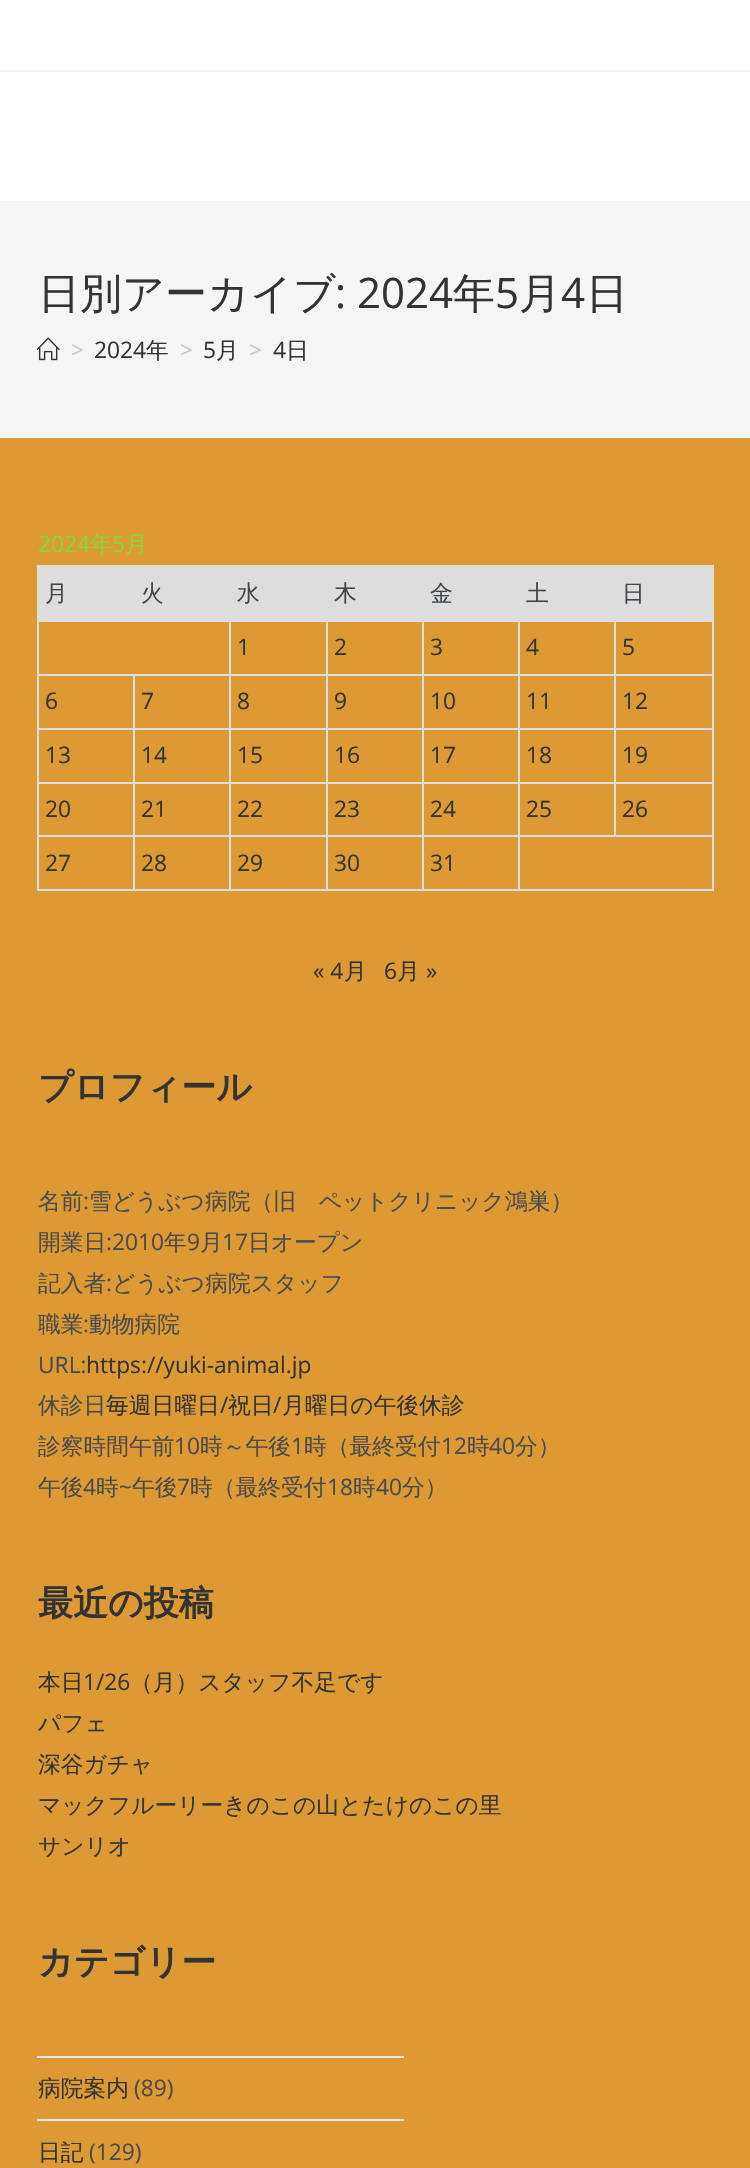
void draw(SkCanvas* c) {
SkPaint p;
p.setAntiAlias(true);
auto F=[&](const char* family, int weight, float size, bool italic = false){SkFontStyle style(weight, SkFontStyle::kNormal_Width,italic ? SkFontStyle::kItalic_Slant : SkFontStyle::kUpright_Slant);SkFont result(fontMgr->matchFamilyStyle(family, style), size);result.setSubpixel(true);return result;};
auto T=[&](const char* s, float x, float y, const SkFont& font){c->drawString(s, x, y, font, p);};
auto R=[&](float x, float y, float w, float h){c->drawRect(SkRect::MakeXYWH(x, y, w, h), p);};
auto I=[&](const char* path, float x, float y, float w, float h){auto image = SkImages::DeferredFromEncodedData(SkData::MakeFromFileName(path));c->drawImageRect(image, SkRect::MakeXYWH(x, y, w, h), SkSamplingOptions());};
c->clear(0xffdd9933);
p.setColor(0xffffffff);
R(0,0,750,70);
p.setColor(0xfff1f1f1);
R(0,70,750,2);
p.setColor(0xffffffff);
R(0,72,750,129);
p.setColor(0xfff1f1f1);
R(0,201,750,2);
p.setColor(0xfff5f5f5);
R(0,203,750,235);
auto f1 = F("WenQuanYi Zen Hei",500,42);
p.setColor(0xff333333);
T("日別アーカイブ",38,308,f1);
auto f2 = F("Open Sans",400,42);
T(": 2024",335,308,f2);
T("年",453,308,f1);
T("5",495,308,f2);
T("月",519,308,f1);
T("4",561,308,f2);
T("日",586,308,f1);
I("1.png",37,337,23,24);
auto f3 = F("Open Sans",400,22.75);
p.setColor(0xffc6c6c6);
T(">",71,358,f3);
p.setColor(0xff333333);
T("2024",94,358,f3);
auto f4 = F("WenQuanYi Zen Hei",500,22.75);
T("年",146,358,f4);
p.setColor(0xffc6c6c6);
T(">",180,358,f3);
p.setColor(0xff333333);
T("5",203,358,f3);
T("月",216,358,f4);
p.setColor(0xffc6c6c6);
T(">",249,358,f3);
p.setColor(0xff333333);
T("4",273,358,f3);
T("日",286,358,f4);
p.setColor(0xff81d742);
T("2024",38,552,f3);
T("年",90,552,f4);
T("5",112,552,f3);
T("月",125,552,f4);
p.setColor(0xffdddddd);
R(39,567,96,53);
R(37,565,98,2);
R(614,620,100,2);
R(614,674,100,2);
R(614,728,100,2);
R(614,782,100,2);
R(518,835,196,2);
R(614,782,2,55);
R(518,782,98,2);
R(614,728,2,56);
R(518,728,98,2);
R(614,674,2,56);
R(518,674,98,2);
R(614,620,2,56);
R(518,620,98,2);
R(712,835,2,56);
R(518,889,196,2);
R(518,835,2,56);
R(422,835,98,2);
R(518,782,2,55);
R(422,782,98,2);
R(518,728,2,56);
R(422,728,98,2);
R(518,674,2,56);
R(422,674,98,2);
R(518,620,2,56);
R(422,620,98,2);
R(422,889,98,2);
R(422,835,2,56);
R(326,835,98,2);
R(422,782,2,55);
R(326,782,98,2);
R(422,728,2,56);
R(326,728,98,2);
R(422,674,2,56);
R(326,674,98,2);
R(422,620,2,56);
R(326,620,98,2);
R(326,889,98,2);
R(326,835,2,56);
R(229,835,98,2);
R(326,782,2,55);
R(229,782,98,2);
R(326,728,2,56);
R(229,728,98,2);
R(326,674,2,56);
R(229,674,98,2);
R(326,620,2,56);
R(229,620,98,2);
R(229,889,98,2);
R(229,835,2,56);
R(133,835,98,2);
R(229,782,2,55);
R(133,782,98,2);
R(229,728,2,56);
R(133,728,98,2);
R(229,674,2,56);
R(133,674,98,2);
R(229,620,2,56);
R(37,620,194,2);
R(133,889,98,2);
R(133,835,2,56);
R(37,835,98,2);
R(133,782,2,55);
R(37,782,98,2);
R(133,728,2,56);
R(37,728,98,2);
R(133,674,2,56);
R(37,674,98,2);
R(37,889,98,2);
R(37,835,2,56);
R(37,782,2,55);
R(37,728,2,56);
R(37,674,2,56);
R(37,620,2,56);
R(37,565,2,56);
p.setColor(0xff40464d);
T("月",45,601,f4);
p.setColor(0xffdddddd);
R(135,565,481,55);
p.setColor(0xff40464d);
T("火",141,601,f4);
T("水",237,601,f4);
T("木",334,601,f4);
T("金",430,601,f4);
T("土",526,601,f4);
p.setColor(0xffdddddd);
R(616,567,96,53);
R(614,565,100,2);
R(712,782,2,55);
R(712,728,2,56);
R(712,674,2,56);
R(712,620,2,56);
R(712,565,2,56);
p.setColor(0xff40464d);
T("日",622,601,f4);
p.setColor(0xff333333);
T("1",237,655,f3);
T("2",334,655,f3);
T("3",430,655,f3);
T("4",526,655,f3);
T("5",622,655,f3);
T("6",45,709,f3);
T("7",141,709,f3);
T("8",237,709,f3);
T("9",334,709,f3);
T("10",430,709,f3);
T("11",526,709,f3);
T("12",622,709,f3);
T("13",45,763,f3);
T("14",141,763,f3);
T("15",237,763,f3);
T("16",334,763,f3);
T("17",430,763,f3);
T("18",526,763,f3);
T("19",622,763,f3);
T("20",45,817,f3);
T("21",141,817,f3);
T("22",237,817,f3);
T("23",334,817,f3);
T("24",430,817,f3);
T("25",526,817,f3);
T("26",622,817,f3);
T("27",45,871,f3);
T("28",141,871,f3);
T("29",237,871,f3);
T("30",334,871,f3);
T("31",430,871,f3);
T("« 4",313,979,f3);
T("月",344,979,f4);
T("6",384,979,f3);
T("月",397,979,f4);
T("»",426,979,f3);
auto f5 = F("WenQuanYi Zen Hei",700,35);
T("プロフィール",38,1099,f5);
p.setColor(0xff4a4a4a);
T("名前",38,1209,f4);
T(":",83,1209,f3);
T("雪どうぶつ病院（旧　ペットクリニック鴻巣）",89,1209,f4);
T("開業日",38,1250,f4);
T(":2010",106,1250,f3);
T("年",164,1250,f4);
T("9",187,1250,f3);
T("月",200,1250,f4);
T("17",222,1250,f3);
T("日オープン",248,1250,f4);
T("記入者",38,1291,f4);
T(":",106,1291,f3);
T("どうぶつ病院スタッフ",112,1291,f4);
T("職業",38,1332,f4);
T(":",83,1332,f3);
T("動物病院",89,1332,f4);
T("URL:",38,1373,f3);
p.setColor(0xff333333);
T("https://yuki-animal.jp",86,1373,f3);
p.setColor(0xff4a4a4a);
T("休診日",38,1413,f4);
p.setColor(0xff333333);
T("毎週日曜日",106,1413,f4);
T("/",220,1413,f3);
T("祝日",228,1413,f4);
T("/",273,1413,f3);
T("月曜日の午後休診",282,1413,f4);
p.setColor(0xff4a4a4a);
T("診察時間午前",38,1454,f4);
T("10",174,1454,f3);
T("時～午後",200,1454,f4);
T("1",291,1454,f3);
T("時（最終受付",304,1454,f4);
T("12",441,1454,f3);
T("時",467,1454,f4);
T("40",489,1454,f3);
T("分）",515,1454,f4);
T("午後",38,1495,f4);
T("4",83,1495,f3);
T("時",96,1495,f4);
T("~",119,1495,f3);
T("午後",132,1495,f4);
T("7",177,1495,f3);
T("時（最終受付",190,1495,f4);
T("18",327,1495,f3);
T("時",353,1495,f4);
T("40",376,1495,f3);
T("分）",402,1495,f4);
p.setColor(0xff333333);
T("最近の投稿",38,1615,f5);
T("本日",38,1690,f4);
T("1/26",83,1690,f3);
T("（月）スタッフ不足です",130,1690,f4);
T("パフェ",38,1731,f4);
T("深谷ガチャ",38,1772,f4);
T("マックフルーリーきのこの山とたけのこの里",38,1813,f4);
T("サンリオ",38,1854,f4);
T("カテゴリー",38,1974,f5);
p.setColor(0xffe9e9e9);
R(37,2056,367,2);
R(37,2119,367,2);
p.setColor(0xff333333);
T("病院案内",38,2096,f4);
p.setColor(0xff4a4a4a);
T("(89)",134,2096,f3);
p.setColor(0xff333333);
T("日記",38,2160,f4);
p.setColor(0xff4a4a4a);
T("(129)",89,2160,f3);
}
